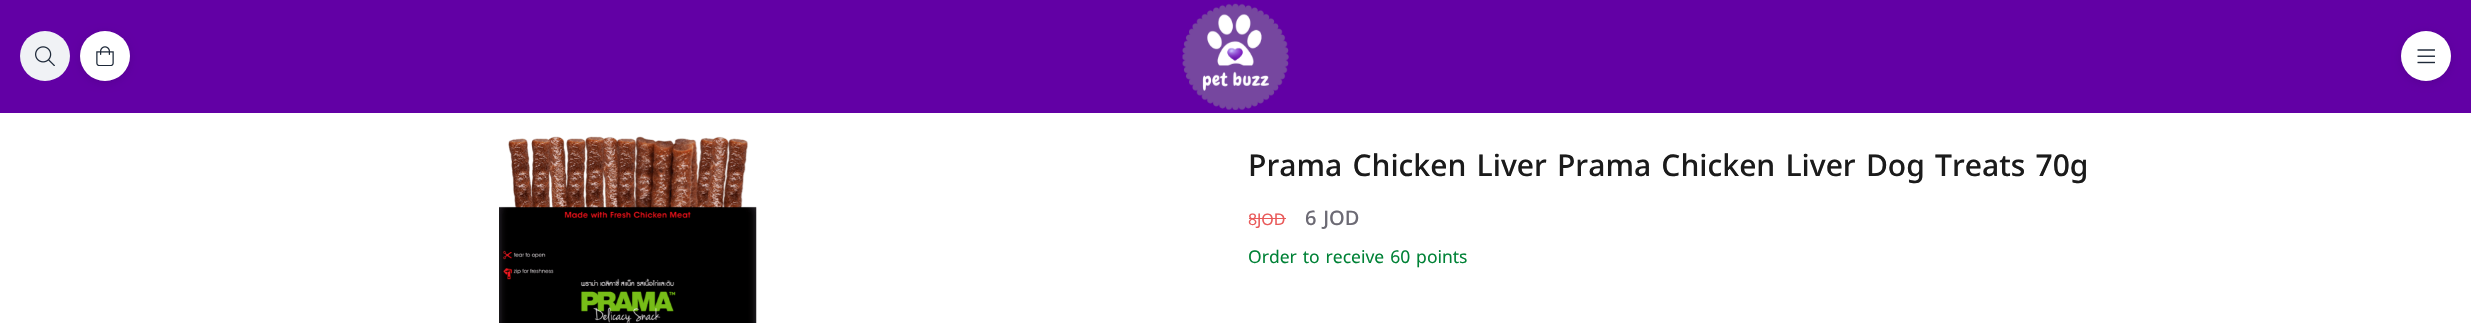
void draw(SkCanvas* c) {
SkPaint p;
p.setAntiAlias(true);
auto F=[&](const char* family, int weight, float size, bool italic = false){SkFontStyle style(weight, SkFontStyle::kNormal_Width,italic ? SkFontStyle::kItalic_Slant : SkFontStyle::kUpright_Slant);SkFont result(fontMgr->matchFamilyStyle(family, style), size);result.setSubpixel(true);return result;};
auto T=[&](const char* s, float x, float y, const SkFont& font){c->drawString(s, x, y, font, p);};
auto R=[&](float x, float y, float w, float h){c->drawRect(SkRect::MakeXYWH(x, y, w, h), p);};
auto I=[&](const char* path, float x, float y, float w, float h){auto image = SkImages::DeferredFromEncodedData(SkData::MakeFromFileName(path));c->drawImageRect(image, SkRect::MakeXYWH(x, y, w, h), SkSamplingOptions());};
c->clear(0xffffffff);
p.setColor(0xff6200a5);
R(0,0,2471,113);
p.setColor(0x1a000000);
p.setMaskFilter(SkMaskFilter::MakeBlur(kNormal_SkBlurStyle, 4.5));
c->drawRoundRect(SkRect::MakeXYWH(80,33,50,50),25,25,p);
p.setMaskFilter(nullptr);
p.setColor(0xfff0f2f5);
c->drawCircle(45,56,25,p);
I("1.png",35,46,20,20);
p.setColor(0xffffffff);
c->drawCircle(105,56,25,p);
p.setStroke(true);
p.setStrokeWidth(1);
p.setColor(0x1affffff);
c->drawCircle(105,56,24.5,p);
I("2.png",96,46,18,20);
I("3.png",1182,3,107,107);
p.setStroke(false);
p.setColor(0x1a000000);
p.setMaskFilter(SkMaskFilter::MakeBlur(kNormal_SkBlurStyle, 4.5));
c->drawRoundRect(SkRect::MakeXYWH(2401,33,50,50),25,25,p);
p.setMaskFilter(nullptr);
p.setColor(0xffffffff);
c->drawCircle(2426,56,25,p);
p.setStroke(true);
p.setColor(0x1affffff);
c->drawCircle(2426,56,24.5,p);
I("4.png",2417,49,18,15);
I("5.png",499,136,258,187);
auto f1 = F("Noto Kufi Arabic",500,30);
p.setStroke(false);
p.setColor(0xff1b1b1b);
T("Prama Chicken Liver Prama Chicken Liver Dog Treats 70g",1248,176,f1);
auto f2 = F("Noto Kufi Arabic",400,16);
p.setColor(0xffe95a5a);
T("8",1248,225,f2);
R(1249,218,9,1);
T("JOD",1257,225,f2);
R(1258,218,28,1);
auto f3 = F("Noto Kufi Arabic",500,20);
p.setColor(0xff6c6a74);
T("6 JOD",1305,225,f3);
auto f4 = F("Noto Kufi Arabic",400,17.5);
p.setColor(0xff008236);
T("Order to receive 60 points",1248,263,f4);
}
